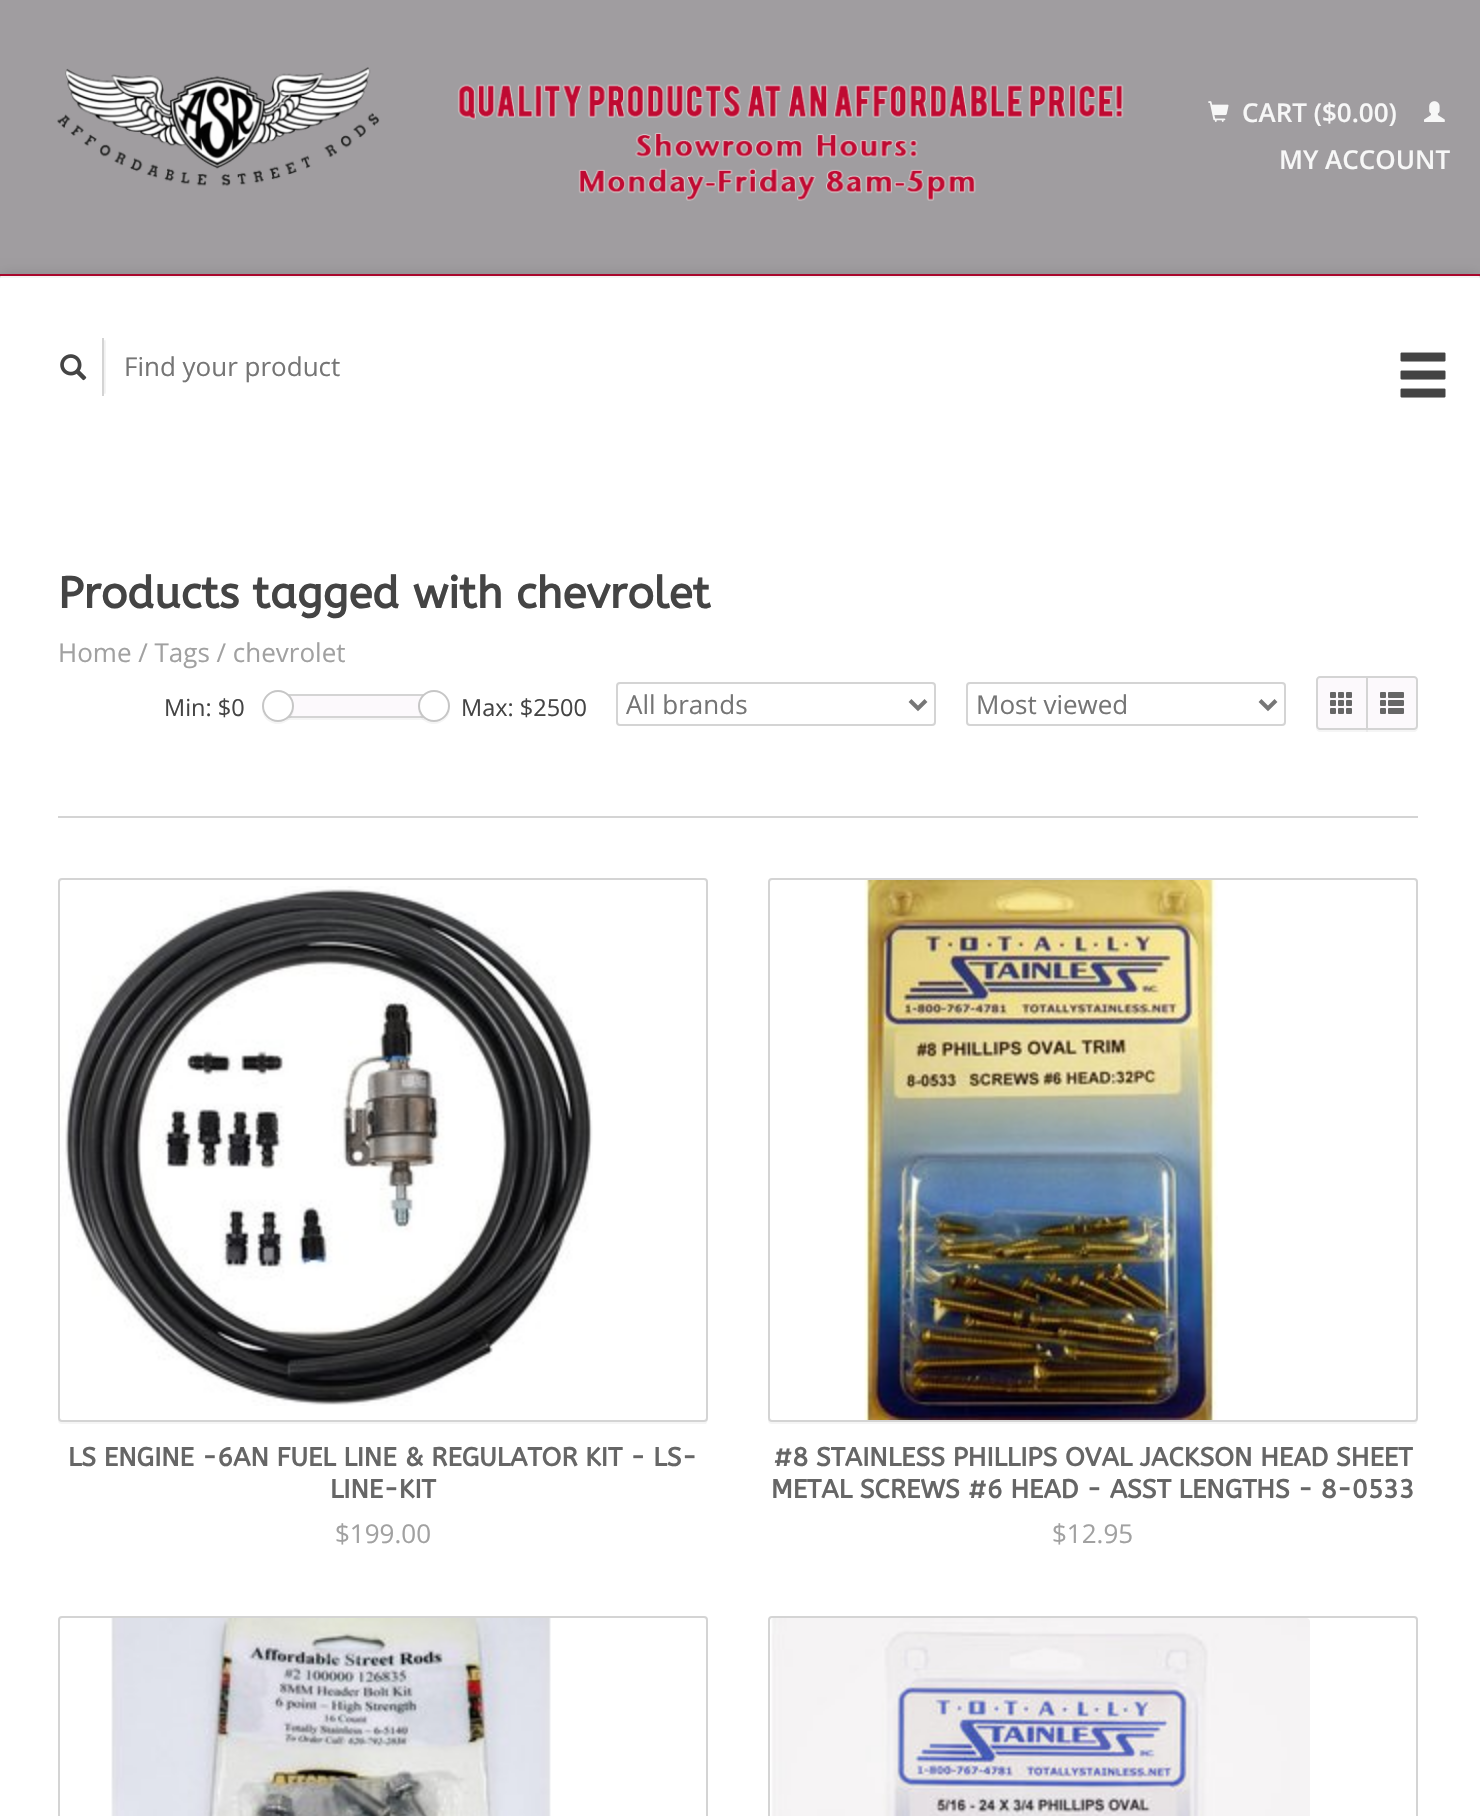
void draw(SkCanvas* c) {
SkPaint p;
p.setAntiAlias(true);
auto F=[&](const char* family, int weight, float size, bool italic = false){SkFontStyle style(weight, SkFontStyle::kNormal_Width,italic ? SkFontStyle::kItalic_Slant : SkFontStyle::kUpright_Slant);SkFont result(fontMgr->matchFamilyStyle(family, style), size);result.setSubpixel(true);return result;};
auto T=[&](const char* s, float x, float y, const SkFont& font){c->drawString(s, x, y, font, p);};
auto R=[&](float x, float y, float w, float h){c->drawRect(SkRect::MakeXYWH(x, y, w, h), p);};
auto Q=[&](float x, float y, float w, float h, float radius){c->drawRoundRect(SkRect::MakeXYWH(x, y, w, h), radius, radius, p);};
auto I=[&](const char* path, float x, float y, float w, float h){auto image = SkImages::DeferredFromEncodedData(SkData::MakeFromFileName(path));c->drawImageRect(image, SkRect::MakeXYWH(x, y, w, h), SkSamplingOptions());};
auto P=[&](const char* data, bool evenOdd = false){SkPath result = *SkParsePath::FromSVGString(data);if (evenOdd) result.setFillType(SkPathFillType::kEvenOdd);return result;};
c->clear(0xffa09da0);
I("1.png",57,67,1067,134);
I("2.png",1208,101,21,21);
auto f1 = F("Open Sans",600,26);
p.setColor(0xfff7f7f7);
T("CART ($0.00)",1242,122,f1);
I("3.png",1424,101,21,21);
T("MY ACCOUNT",1279,169,f1);
p.setColor(0x21000000);
p.setMaskFilter(SkMaskFilter::MakeBlur(kNormal_SkBlurStyle, 7));
c->drawRoundRect(SkRect::MakeXYWH(0,274,1480,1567),4,4,p);
p.setMaskFilter(nullptr);
p.setColor(0xffffffff);
Q(0,274,1480,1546,4);
p.setColor(0x0a000000);
R(0,276,1480,2);
p.setColor(0xffa8072c);
R(0,274,1480,2);
c->save();
c->clipRect(SkRect::MakeXYWH(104,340,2,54));
p.setColor(0x0f000000);
p.setMaskFilter(SkMaskFilter::MakeBlur(kNormal_SkBlurStyle, 1));
c->drawRect(SkRect::MakeXYWH(50,340,56,54),p);
p.setMaskFilter(nullptr);
c->restore();
p.setColor(0xffd4d4d4);
R(102,338,2,58);
I("4.png",60,354,27,27);
auto f2 = F("Open Sans",400,26);
p.setColor(0xff757575);
T("Find your product",124,376,f2);
I("5.png",1400,352,46,46);
auto f3 = F("ABeeZee",700,43.9);
p.setColor(0xff444444);
T("Products tagged with chevrolet",58,608,f3);
p.setColor(0xffa1a1a1);
T("Home / Tags / chevrolet",58,662,f2);
auto f4 = F("Open Sans",400,23.5);
p.setColor(0xff444444);
T("Min: $0",164,716,f4);
p.setColor(0xfff5f5f5);
R(280,718,147,2);
p.setColor(0xfffcf9fc);
R(290,696,132,20);
p.setStroke(true);
p.setStrokeWidth(2);
p.setColor(0xffd4d4d4);
c->drawRect(SkRect::MakeXYWH(281,695,154,22),p);
p.setStroke(false);
p.setColor(0x0a000000);
c->drawPath(P("M262 707c0 3.5 1 7 2.5 10c9.5 13.5 30.5 6 29.5-10c-1.5 20-30.5 20-32 0z"),p);
p.setColor(0xffffffff);
c->drawCircle(278,706,15,p);
p.setStroke(true);
p.setColor(0xffc6c6c6);
c->drawCircle(278,706,15,p);
p.setStroke(false);
p.setColor(0x0a000000);
c->drawPath(P("M418 707c0 3.5 1 7 2.5 10c9.5 13.5 30.5 6 29.5-10c-1.5 20-30.5 20-32 0z"),p);
p.setColor(0xffffffff);
c->drawCircle(434,706,15,p);
p.setStroke(true);
p.setColor(0xffc6c6c6);
c->drawCircle(434,706,15,p);
p.setStroke(false);
p.setColor(0xff444444);
T("Max: $2500",461,716,f4);
p.setStroke(true);
p.setColor(0xffd4d4d4);
c->drawRoundRect(SkRect::MakeXYWH(617,683,318,42),3,3,p);
p.setStrokeWidth(4);
p.setColor(0xff777777);
c->drawPath(P("M910 700.5l8 8l8-8"),p);
p.setStroke(false);
p.setColor(0xff757575);
T("All brands",626,714,f2);
p.setStroke(true);
p.setStrokeWidth(2);
p.setColor(0xffd4d4d4);
c->drawRoundRect(SkRect::MakeXYWH(967,683,318,42),3,3,p);
p.setStrokeWidth(4);
p.setColor(0xff777777);
c->drawPath(P("M1260 700.5l8 8l8-8"),p);
p.setStroke(false);
p.setColor(0xff757575);
T("Most viewed",976,714,f2);
p.setColor(0xfff5f5f5);
c->drawPath(P("M1316 726v2c0 2 2 4 4 4h48v-2h-48c-2 0-4-2-4-4z"),p);
p.setColor(0xfffcf9fc);
c->drawPath(P("M1320 677h47v52h-47c-1.5 0-3-1.5-3-3v-46c0-1.5 1.5-3 3-3z"),p);
p.setStroke(true);
p.setStrokeWidth(2);
p.setColor(0xffd4d4d4);
c->drawPath(P("M1320 677h47v52h-47c-1.5 0-3-1.5-3-3v-46c0-1.5 1.5-3 3-3z"),p);
I("6.png",1330,692,22,22);
p.setStroke(false);
p.setColor(0x0a000000);
c->drawPath(P("M1366 730v2h48c2 0 4-2 4-4v-2c0 2-2 4-4 4z"),p);
p.setColor(0xfffcf9fc);
c->drawPath(P("M1367 677h47c1.5 0 3 1.5 3 3v46c0 1.5-1.5 3-3 3h-47z"),p);
p.setStroke(true);
p.setColor(0xffd4d4d4);
c->drawPath(P("M1367 677h47c1.5 0 3 1.5 3 3v46c0 1.5-1.5 3-3 3h-47z"),p);
I("7.png",1380,692,24,22);
p.setStroke(false);
R(58,816,1360,2);
p.setColor(0xfff5f5f5);
c->drawPath(P("M58 1418c0 3 0 6 4 6h644l1-2c1-1 1-3 1-4c0 2-2 4-4 4h-642c-2 0-4-2-4-4z"),p);
p.setStroke(true);
p.setColor(0xffd4d4d4);
c->drawRoundRect(SkRect::MakeXYWH(59,879,648,542),3,3,p);
I("8.png",60,886,533,520);
auto f5 = F("ABeeZee",700,26);
p.setStroke(false);
p.setColor(0xff666666);
T("LS ENGINE -6AN FUEL LINE & REGULATOR KIT - LS-",68,1466,f5);
T("LINE-KIT",330,1498,f5);
p.setColor(0xffa1a1a1);
T("$199.00",335,1543,f2);
p.setColor(0xfff5f5f5);
c->drawPath(P("M768 1418c0 3 0 6 4 6h644l1-2c1-1 1-3 1-4c0 2-2 4-4 4h-642c-2 0-4-2-4-4z"),p);
p.setStroke(true);
p.setColor(0xffd4d4d4);
c->drawRoundRect(SkRect::MakeXYWH(769,879,648,542),3,3,p);
I("9.png",864,880,354,540);
p.setStroke(false);
p.setColor(0xff666666);
T("#8 STAINLESS PHILLIPS OVAL JACKSON HEAD SHEET",773,1466,f5);
T("METAL SCREWS #6 HEAD - ASST LENGTHS - 8-0533",771,1498,f5);
p.setColor(0xffa1a1a1);
T("$12.95",1052,1543,f2);
p.setStroke(true);
p.setColor(0xffd4d4d4);
c->drawRoundRect(SkRect::MakeXYWH(59,1617,648,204),3,3,p);
I("10.png",111,1618,440,198);
c->drawRoundRect(SkRect::MakeXYWH(769,1617,648,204),3,3,p);
I("11.png",771,1618,539,198);
}
